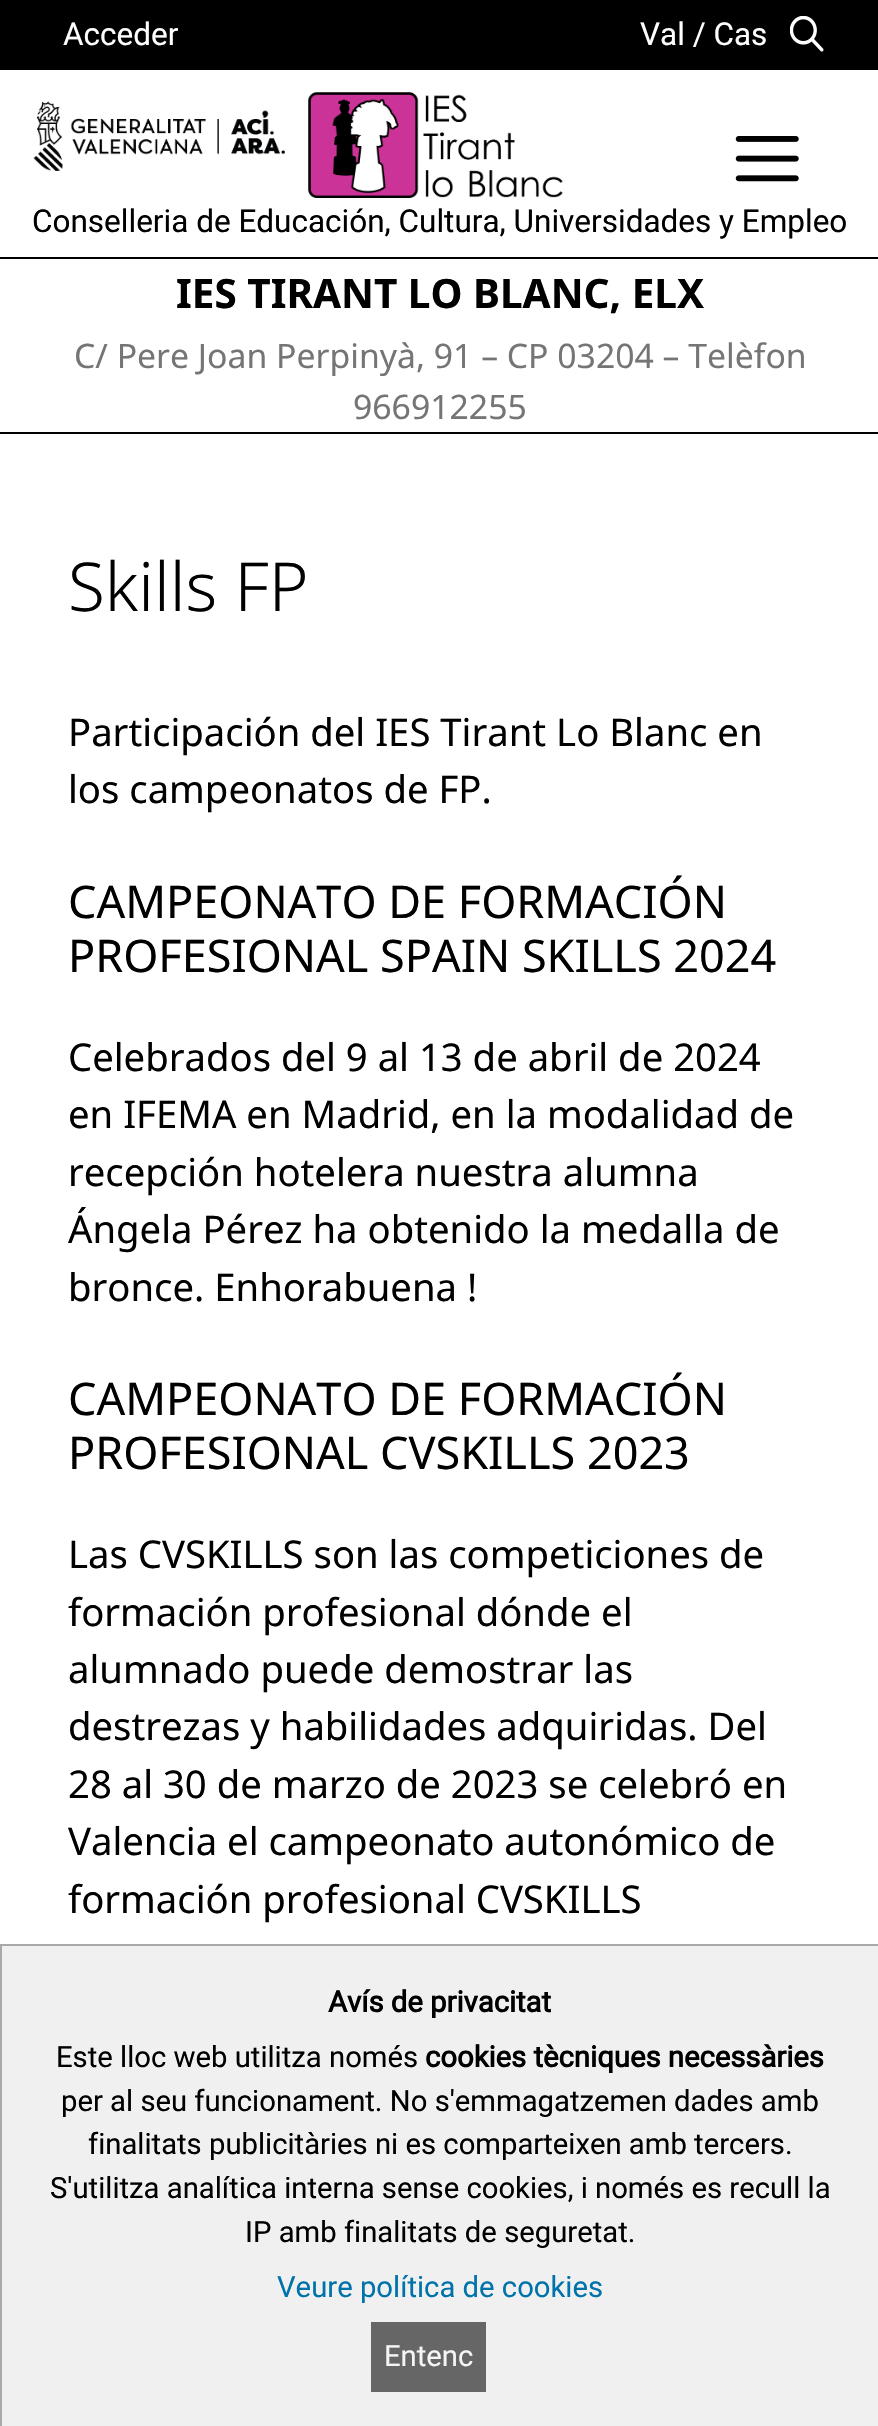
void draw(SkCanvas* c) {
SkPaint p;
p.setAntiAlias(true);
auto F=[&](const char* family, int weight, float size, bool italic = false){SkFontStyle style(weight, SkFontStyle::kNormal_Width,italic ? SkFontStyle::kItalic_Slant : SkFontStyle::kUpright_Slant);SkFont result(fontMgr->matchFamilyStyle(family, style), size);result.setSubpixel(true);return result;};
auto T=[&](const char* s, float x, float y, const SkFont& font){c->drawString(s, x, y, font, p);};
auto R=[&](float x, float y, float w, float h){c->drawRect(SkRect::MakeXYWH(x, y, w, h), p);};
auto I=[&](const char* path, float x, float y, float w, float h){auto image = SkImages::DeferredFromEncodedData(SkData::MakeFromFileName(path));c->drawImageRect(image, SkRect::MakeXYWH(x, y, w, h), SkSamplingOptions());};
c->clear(0xffffffff);
p.setColor(0xff000000);
R(0,432,878,2);
R(0,257,878,2);
R(0,0,878,70);
auto f1 = F("Roboto",400,31.5);
p.setColor(0xffffffff);
T("Acceder",63,45,f1);
T("Val / Cas",640,45,f1);
I("1.png",790,16,34,36);
I("2.png",33,101,252,70);
I("3.png",308,92,255,106);
p.setColor(0xff000000);
T("Conselleria de Educación, Cultura, Universidades y Empleo",32,232,f1);
auto f2 = F("Noto Sans",700,40.5);
T("IES TIRANT LO BLANC, ELX",176,308,f2);
auto f3 = F("Noto Sans",400,33.75);
p.setColor(0xff757575);
T("C/ Pere Joan Perpinyà, 91 – CP 03204 – Telèfon",74,368,f3);
T("966912255",353,419,f3);
I("4.png",735,136,64,46);
auto f4 = F("Noto Sans",300,67.5);
p.setColor(0xff000000);
T("Skills FP",68,611,f4);
auto f5 = F("Noto Sans",400,38.25);
T("Participación del IES Tirant Lo Blanc en",68,746,f5);
T("los campeonatos de FP.",68,803,f5);
auto f6 = F("Noto Sans",400,45);
T("CAMPEONATO DE FORMACIÓN",68,918,f6);
T("PROFESIONAL SPAIN SKILLS 2024",68,972,f6);
T("Celebrados del 9 al 13 de abril de 2024",68,1071,f5);
T("en IFEMA en Madrid, en la modalidad de",68,1128,f5);
T("recepción hotelera nuestra alumna",68,1186,f5);
T("Ángela Pérez ha obtenido la medalla de",68,1243,f5);
T("bronce. Enhorabuena !",68,1301,f5);
T("CAMPEONATO DE FORMACIÓN",68,1415,f6);
T("PROFESIONAL CVSKILLS 2023",68,1469,f6);
T("Las CVSKILLS son las competiciones de",68,1568,f5);
T("formación profesional dónde el",68,1626,f5);
T("alumnado puede demostrar las",68,1683,f5);
T("destrezas y habilidades adquiridas. Del",68,1740,f5);
T("28 al 30 de marzo de 2023 se celebró en",68,1798,f5);
T("Valencia el campeonato autonómico de",68,1855,f5);
T("formación profesional CVSKILLS",68,1913,f5);
p.setColor(0xfff0f0f0);
c->drawRect(SkRect::MakeXYWH(1,1945,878,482),p);
p.setStroke(true);
p.setStrokeWidth(2);
p.setColor(0xffa9a9a9);
c->drawRect(SkRect::MakeXYWH(1,1945,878,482),p);
auto f7 = F("Roboto",700,29.25);
p.setStroke(false);
p.setColor(0xff000000);
T("Avís de privacitat",328,2012,f7);
auto f8 = F("Roboto",400,29.25);
T("Este lloc web utilitza només",56,2067,f8);
T("cookies tècniques necessàries",425,2067,f7);
T("per al seu funcionament. No s'emmagatzemen dades amb",61,2111,f8);
T("finalitats publicitàries ni es comparteixen amb tercers.",88,2154,f8);
T("S'utilitza analítica interna sense cookies, i només es recull la",50,2198,f8);
T("IP amb finalitats de seguretat.",245,2242,f8);
p.setColor(0xff0073aa);
T("Veure política de cookies",277,2297,f8);
p.setColor(0xff666666);
R(371,2322,115,70);
p.setColor(0xfff5f5f5);
T("Entenc",384,2366,f8);
}
